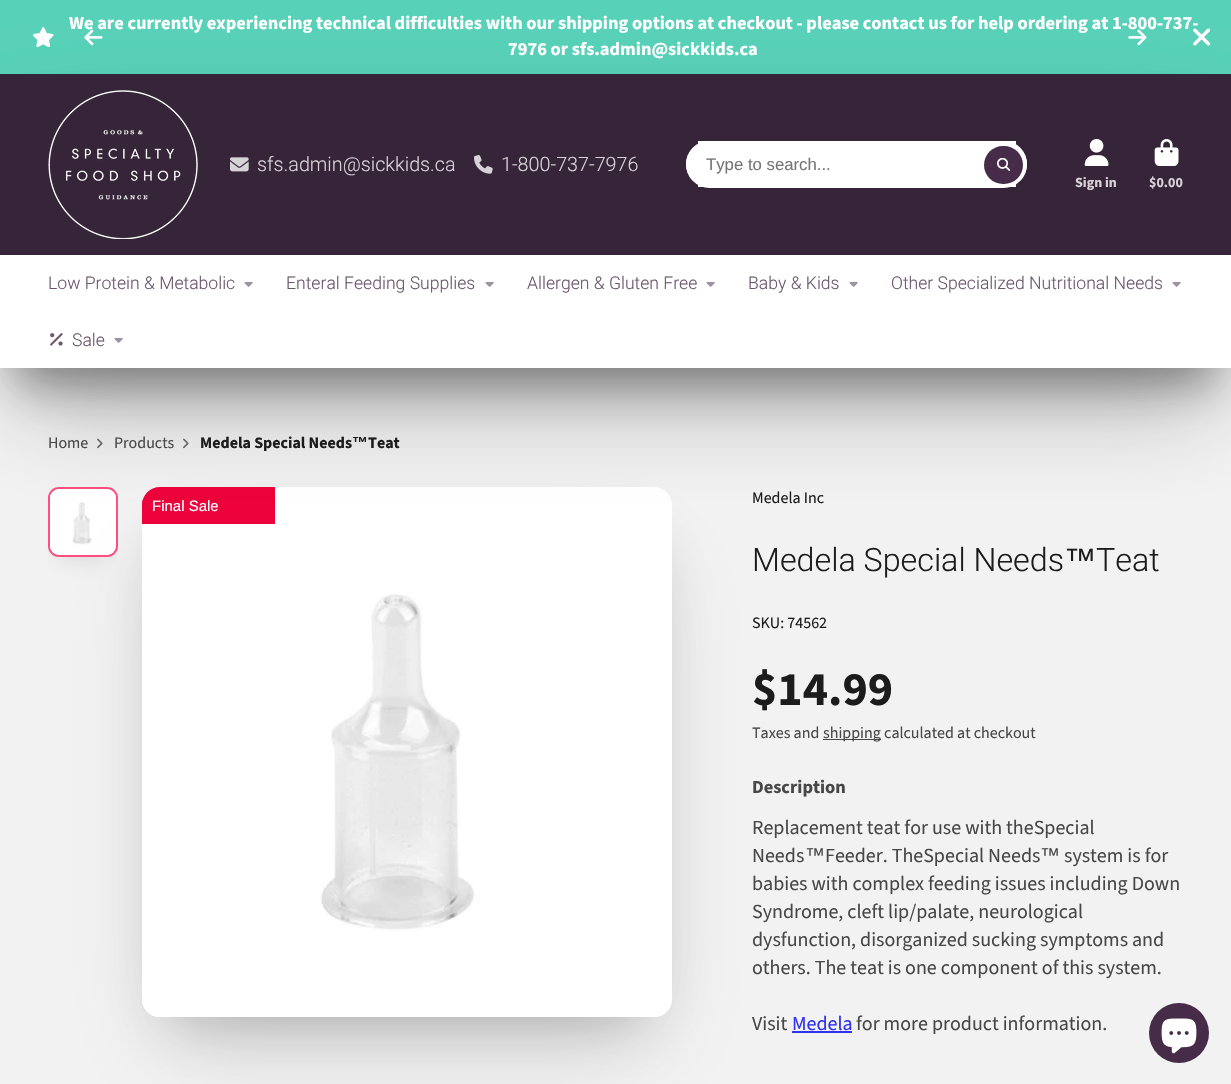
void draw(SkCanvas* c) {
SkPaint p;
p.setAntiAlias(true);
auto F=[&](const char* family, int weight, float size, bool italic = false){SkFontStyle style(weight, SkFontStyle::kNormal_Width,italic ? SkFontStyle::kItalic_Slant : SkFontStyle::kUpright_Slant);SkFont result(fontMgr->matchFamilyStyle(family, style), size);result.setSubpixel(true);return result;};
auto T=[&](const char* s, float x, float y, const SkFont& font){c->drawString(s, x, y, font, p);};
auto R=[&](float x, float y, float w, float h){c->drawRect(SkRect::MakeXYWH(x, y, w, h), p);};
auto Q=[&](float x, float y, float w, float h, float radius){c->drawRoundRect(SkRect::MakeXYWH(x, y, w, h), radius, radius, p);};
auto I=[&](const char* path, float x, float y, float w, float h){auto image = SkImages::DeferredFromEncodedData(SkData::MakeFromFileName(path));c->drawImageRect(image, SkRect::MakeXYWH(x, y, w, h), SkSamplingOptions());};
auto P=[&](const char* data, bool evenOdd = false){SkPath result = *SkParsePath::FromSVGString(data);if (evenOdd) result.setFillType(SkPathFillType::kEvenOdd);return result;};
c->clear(0xfff2f2f2);
p.setColor(0xff57d1b8);
R(0,0,1231,74);
auto f1 = F("Source Sans Pro",700,18.4);
p.setColor(0xffffffff);
T("We are currently experiencing technical difficulties with our shipping options at checkout - please contact us for help ordering at 1-800-737-",69,29,f1);
I("1.png",33,27,21,21);
T("7976 or sfs.admin@sickkids.ca",508,55,f1);
I("2.png",84,29,19,17);
I("3.png",1128,29,19,17);
I("4.png",1193,28,18,18);
I("13.png",97,438,6,11);
I("13.png",183,438,6,11);
p.setColor(0x660f0f0f);
p.setMaskFilter(SkMaskFilter::MakeBlur(kNormal_SkBlurStyle, 22));
c->drawRect(SkRect::MakeXYWH(16,120,1199,262),p);
p.setMaskFilter(nullptr);
c->save();
c->clipRect(SkRect::MakeXYWH(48,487,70,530));
p.setColor(0x4d0f0f0f);
p.setMaskFilter(SkMaskFilter::MakeBlur(kNormal_SkBlurStyle, 16));
c->drawRect(SkRect::MakeXYWH(64,511,38,38),p);
p.setMaskFilter(nullptr);
c->restore();
p.setStroke(true);
p.setStrokeWidth(2);
p.setColor(0xffff4d80);
c->drawRoundRect(SkRect::MakeXYWH(49,488,68,68),10,10,p);
I("14.png",50,489,66,66);
p.setStroke(false);
p.setColor(0x4d0f0f0f);
p.setMaskFilter(SkMaskFilter::MakeBlur(kNormal_SkBlurStyle, 30));
c->drawRect(SkRect::MakeXYWH(172,547,470,470),p);
p.setMaskFilter(nullptr);
p.setColor(0x1a0f0f0f);
p.setMaskFilter(SkMaskFilter::MakeBlur(kNormal_SkBlurStyle, 50));
c->drawRect(SkRect::MakeXYWH(162,557,490,490),p);
p.setMaskFilter(nullptr);
p.setColor(0xffffffff);
Q(142,487,530,530,18);
p.setColor(0xffed013a);
c->drawPath(P("M160 487h115v37h-133v-19c0-10 8-18 18-18z"),p);
c->save();
c->clipPath(P("M160 487h494c10 0 18 8 18 18v494c0 10-8 18-18 18h-494c-10 0-18-8-18-18v-494c0-10 8-18 18-18z"),true);
R(142,499,1,6);
c->restore();
p.setColor(0x4d0f0f0f);
p.setMaskFilter(SkMaskFilter::MakeBlur(kNormal_SkBlurStyle, 50));
c->drawRect(SkRect::MakeXYWH(16,140,1199,262),p);
p.setMaskFilter(nullptr);
p.setColor(0xff362438);
R(0,74,1231,181);
I("5.png",48,90,150,149);
I("6.png",230,157,19,15);
auto f2 = F("Roboto",300,19.75);
p.setColor(0xffd7d3d7);
T("sfs.admin@sickkids.ca",257,171,f2);
I("7.png",474,155,19,19);
T("1-800-737-7976",501,171,f2);
p.setColor(0xffffffff);
Q(686,141,341,46,23);
R(698,141,318,46);
Q(686,141,341,47,23.5);
auto f3 = F("Liberation Sans",400,16.75);
p.setColor(0xff757575);
T("Type to search...",706,170,f3);
p.setColor(0xff462c48);
Q(984,146,39,38,19);
I("8.png",997,158,13,13);
I("9.png",1084,139,25,27);
auto f4 = F("Source Sans Pro",700,14);
p.setColor(0xffd7d3d7);
T("Sign in",1075,187,f4);
I("10.png",1154,139,25,27);
T("$0.00",1149,187,f4);
p.setColor(0xffffffff);
R(0,255,1231,113);
auto f5 = F("Roboto",300,17.6);
p.setColor(0xff6b566d);
T("Low Protein & Metabolic",48,289,f5);
I("11.png",244,281,9,6);
T("Enteral Feeding Supplies",286,289,f5);
I("11.png",485,281,9,6);
T("Allergen & Gluten Free",527,289,f5);
I("11.png",706,281,9,6);
T("Baby & Kids",748,289,f5);
I("11.png",849,281,9,6);
T("Other Specialized Nutritional Needs",891,289,f5);
I("11.png",1172,281,9,6);
I("12.png",50,333,13,13);
T("Sale",72,346,f5);
I("11.png",114,337,9,6);
auto f6 = F("Source Sans Pro",400,16);
p.setColor(0xff474747);
T("Home",48,448,f6);
T("Products",114,448,f6);
auto f7 = F("Source Sans Pro",700,16);
p.setColor(0xff1c1c1c);
T("Medela Special Needs",200,448,f7);
auto f8 = F("Liberation Sans",700,16);
T("™",352,448,f8);
T("Teat",368,448,f7);
I("15.png",142,594,530,423);
auto f9 = F("Liberation Sans",400,15);
p.setColor(0xffffffff);
T("Final Sale",152,511,f9);
p.setColor(0xff1c1c1c);
T("Medela Inc",752,503,f6);
auto f10 = F("Roboto",300,32.25);
T("Medela Special Needs",752,571,f10);
auto f11 = F("Liberation Sans",400,32.25);
T("™",1064,571,f11);
T("Teat",1096,571,f10);
T("SKU: 74562",752,628,f6);
auto f12 = F("Source Sans Pro",700,48);
T("$14.99",752,705,f12);
p.setColor(0xff474747);
T("Taxes and",752,738,f6);
R(823,739,58,1);
T("shipping calculated at checkout",823,738,f6);
T("Description",752,793,f1);
auto f13 = F("Source Sans Pro",400,20);
T("Replacement teat for use with theSpecial",752,834,f13);
T("Needs",752,862,f13);
auto f14 = F("Liberation Sans",400,20);
T("™",805,862,f14);
T("Feeder. TheSpecial Needs",825,862,f13);
T("™",1040,862,f14);
T("system is for",1064,862,f13);
T("babies with complex feeding issues including Down",752,890,f13);
T("Syndrome, cleft lip/palate, neurological",752,918,f13);
T("dysfunction, disorganized sucking symptoms and",752,946,f13);
T("others. The teat is one component of this system.",752,974,f13);
T("Visit",752,1030,f13);
p.setColor(0xff3030ef);
T("Medela",792,1030,f13);
R(792,1031,60,2);
p.setColor(0xff474747);
T("for more product information.",856,1030,f13);
p.setColor(0xff462c48);
c->drawCircle(1179,1033,30,p);
I("16.png",1161,1018,36,36);
}
